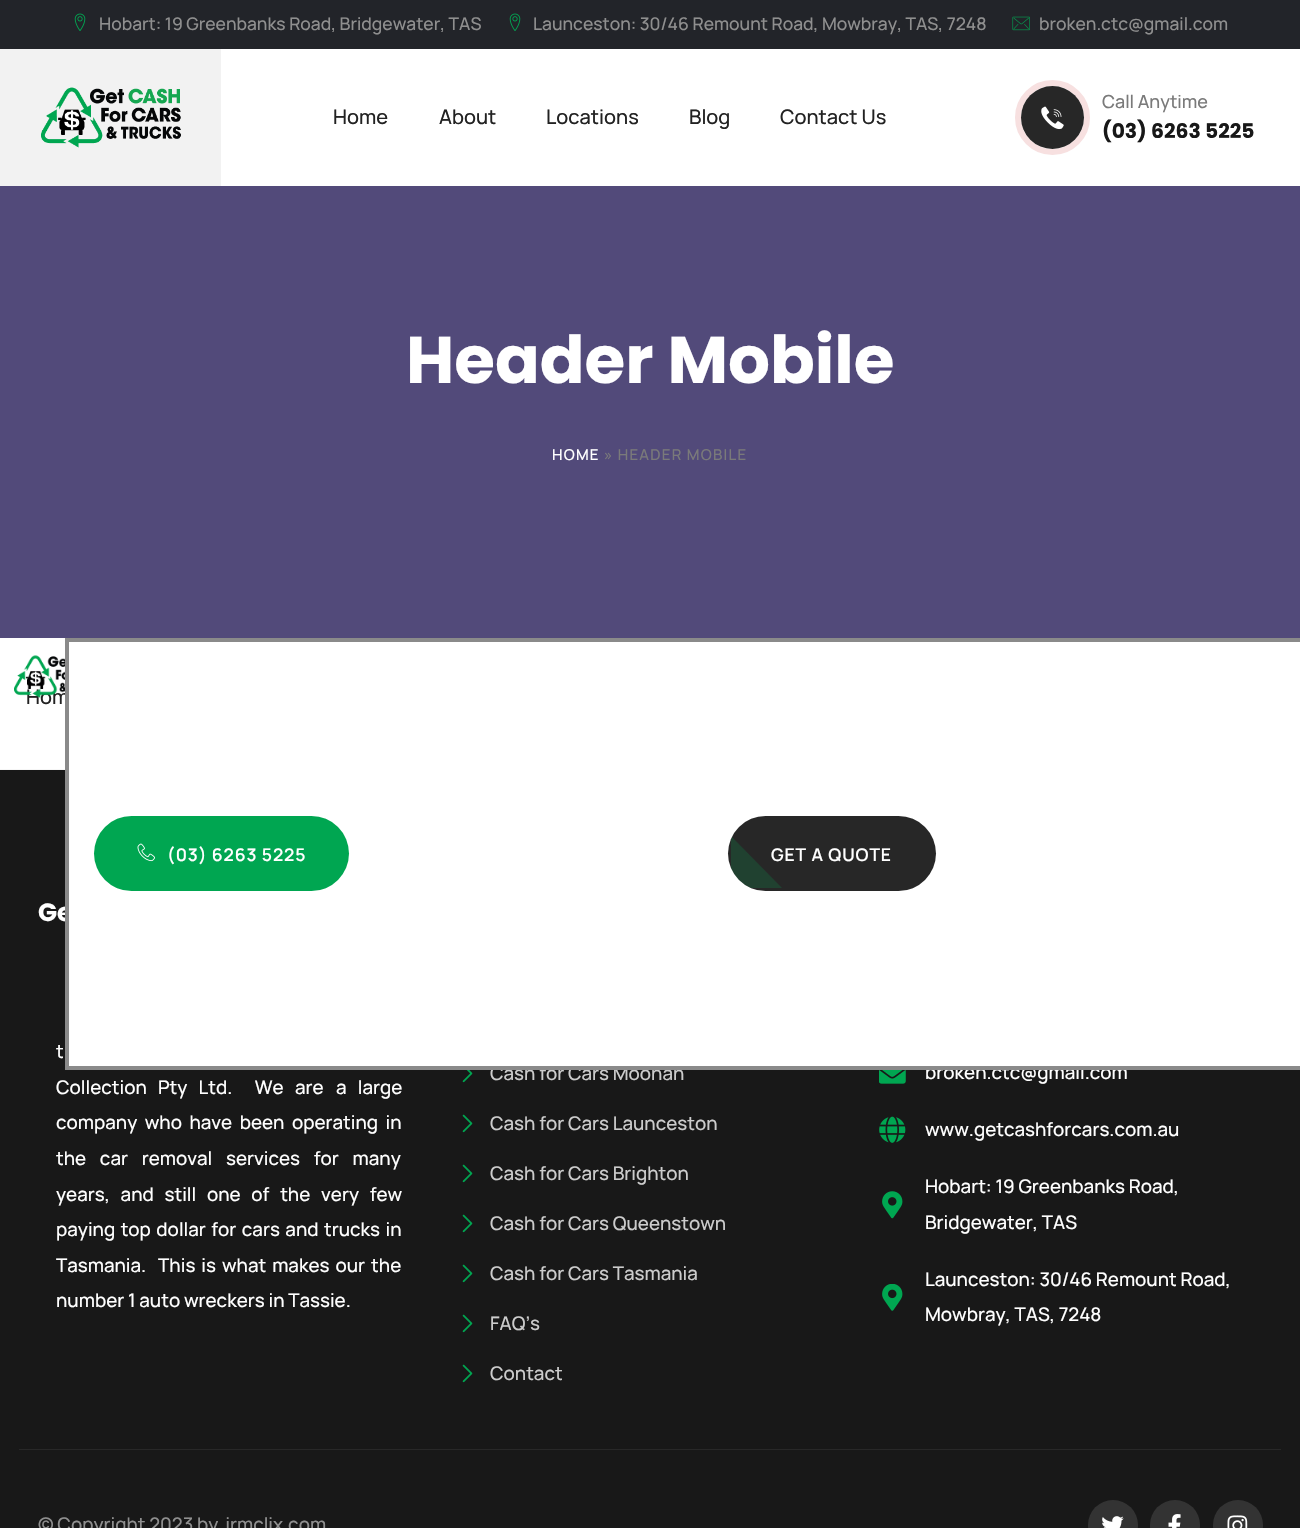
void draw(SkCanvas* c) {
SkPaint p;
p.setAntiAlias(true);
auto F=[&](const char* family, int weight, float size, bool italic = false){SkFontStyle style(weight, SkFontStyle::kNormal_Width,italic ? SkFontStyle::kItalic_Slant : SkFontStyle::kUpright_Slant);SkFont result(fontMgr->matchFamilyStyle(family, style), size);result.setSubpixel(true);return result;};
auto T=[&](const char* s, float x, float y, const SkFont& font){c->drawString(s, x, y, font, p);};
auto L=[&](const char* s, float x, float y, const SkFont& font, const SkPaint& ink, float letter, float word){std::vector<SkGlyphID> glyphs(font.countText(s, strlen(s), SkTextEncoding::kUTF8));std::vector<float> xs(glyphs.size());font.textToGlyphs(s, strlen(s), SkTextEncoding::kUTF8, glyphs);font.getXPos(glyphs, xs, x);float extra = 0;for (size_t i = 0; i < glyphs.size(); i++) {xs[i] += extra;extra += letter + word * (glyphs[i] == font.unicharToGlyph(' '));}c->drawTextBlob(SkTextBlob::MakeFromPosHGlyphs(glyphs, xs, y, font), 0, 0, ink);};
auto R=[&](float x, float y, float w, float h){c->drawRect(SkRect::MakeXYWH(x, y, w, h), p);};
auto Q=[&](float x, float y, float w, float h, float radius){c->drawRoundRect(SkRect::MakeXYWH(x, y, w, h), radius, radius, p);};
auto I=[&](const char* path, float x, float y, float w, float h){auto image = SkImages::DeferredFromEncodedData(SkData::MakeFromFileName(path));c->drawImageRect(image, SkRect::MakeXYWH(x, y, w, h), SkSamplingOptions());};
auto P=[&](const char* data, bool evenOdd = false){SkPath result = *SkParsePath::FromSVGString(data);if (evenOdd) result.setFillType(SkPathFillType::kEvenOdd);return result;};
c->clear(0xffffffff);
p.setColor(0xff222429);
R(0,0,1300,49);
I("1.png",74,13,12,18);
auto f1 = F("Manrope",500,17.5);
p.setColor(0xff8f8f8f);
T("Hobart: 19 Greenbanks Road, Bridgewater, TAS",99,30,f1);
I("1.png",509,13,12,18);
T("Launceston: 30/46 Remount Road, Mowbray, TAS, 7248",533,30,f1);
I("2.png",1012,16,18,15);
T("broken.ctc@gmail.com",1039,30,f1);
p.setColor(0xfff2f2f2);
R(0,49,221,137);
I("3.png",41,87,140,61);
auto f2 = F("Manrope",500,20);
p.setColor(0xff222222);
T("Home",333,124,f2);
T("About",439,124,f2);
T("Locations",546,124,f2);
T("Blog",689,124,f2);
T("Contact Us",780,124,f2);
p.setStroke(true);
p.setStrokeWidth(6);
p.setColor(0xfff7e0e0);
c->drawCircle(1052.5,117.5,34.5,p);
p.setStroke(false);
p.setColor(0xff272727);
c->drawCircle(1052.5,117.5,31.5,p);
I("4.png",1041,106,23,24);
auto f3 = F("Manrope",500,18);
p.setColor(0xff7a7a7a);
T("Call Anytime",1102,108,f3);
auto f4 = F("Poppins",700,20.25);
p.setColor(0xff181818);
T("(03) 6263 5225",1102,138,f4);
p.setColor(0xff524a7a);
R(0,186,1300,452);
auto f5 = F("Poppins",700,66);
p.setColor(0xffffffff);
T("Header Mobile",406,383,f5);
auto f6 = F("Manrope",500,15);
L("HOME",552,460,f6,p,1.25,0);
p.setColor(0xff7a7a7a);
L("» HEADER MOBILE",604,460,f6,p,1.25,0);
p.setColor(0xfff6f6f6);
R(0,769,65,1);
p.setColor(0xff222222);
T("Hom",26,704,f2);
I("5.png",14,655,51,43);
p.setColor(0xff181818);
R(0,770,1300,758);
p.setColor(0xffffffff);
R(69,770,1231,296);
auto f7 = F("Poppins",700,25);
T("Ge",38,921,f7);
auto f8 = F("Manrope",500,18.75);
p.setColor(0xffcccccc);
T("Cash for Cars Moonah",490,1080,f8);
p.setColor(0xffffffff);
T("broken.ctc@gmail.com",925,1079,f8);
p.setStroke(true);
p.setStrokeWidth(4);
p.setColor(0xff8a8a8a);
c->drawRect(SkRect::MakeXYWH(67,640,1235,428),p);
p.setStroke(false);
p.setColor(0xff00a651);
Q(94,816,255,75,37.5);
I("6.png",137,843,18,19);
p.setColor(0x3300a651);
c->drawPath(P("M149 888h-32c-5-1-18-13-19-18v-34z"),p);
auto f9 = F("Manrope",600,17.5);
p.setColor(0xffffffff);
L("(03) 6263 5225",167,861,f9,p,.9,0);
p.setColor(0xff272727);
Q(728,816,208,75,37.5);
p.setColor(0xffffffff);
L("GET A QUOTE",771,861,f9,p,.9,0);
p.setColor(0x3300a651);
c->drawPath(P("M782 888h-31c-9-4-16-11-20-20v-29l1-2z"),p);
p.setColor(0xffffffff);
L("t",56,1058,f8,p,0,2);
L("Collection Pty Ltd.  We are",56,1094,f8,p,0,7.5);
L("a large",336,1094,f8,p,0,7.5);
L("company who have been operating in",56,1129,f8,p,0,3.75);
L("the car removal services for many",56,1165,f8,p,0,10);
L("years, and still one of the very few",56,1201,f8,p,0,7);
L("paying top dollar for cars and trucks in",56,1236,f8,p,0,1.75);
L("Tasmania.  This is what makes our the",56,1272,f8,p,0,2.25);
T("number 1 auto wreckers in Tassie.",56,1307,f8);
I("7.png",462,1070,11,13);
I("8.png",462,1114,11,19);
p.setColor(0xffcccccc);
T("Cash for Cars Launceston",490,1130,f8);
I("8.png",462,1164,11,19);
T("Cash for Cars Brighton",490,1180,f8);
I("8.png",462,1214,11,19);
T("Cash for Cars Queenstown",490,1230,f8);
I("8.png",462,1264,11,19);
T("Cash for Cars Tasmania",490,1280,f8);
I("8.png",462,1314,11,19);
T("FAQ’s",490,1330,f8);
I("8.png",462,1364,11,19);
T("Contact",490,1380,f8);
I("9.png",879,1070,27,14);
I("10.png",879,1116,27,27);
p.setColor(0xffffffff);
T("www.getcashforcars.com.au",925,1136,f8);
I("11.png",882,1191,21,28);
T("Hobart: 19 Greenbanks Road,",925,1193,f8);
T("Bridgewater, TAS",925,1229,f8);
I("12.png",882,1284,21,27);
T("Launceston: 30/46 Remount Road,",925,1286,f8);
T("Mowbray, TAS, 7248",925,1321,f8);
p.setColor(0xff282828);
R(19,1449,1262,1);
p.setColor(0xff8f8f8f);
T("© Copyright 2023 by",38,1531,f8);
T("jrmclix.com",225,1531,f8);
p.setColor(0xff333333);
c->drawCircle(1113,1525,25,p);
I("13.png",1102,1516,22,12);
c->drawCircle(1175,1525,25,p);
I("14.png",1168,1514,13,14);
c->drawCircle(1238,1525,25,p);
I("15.png",1227,1515,21,13);
}
